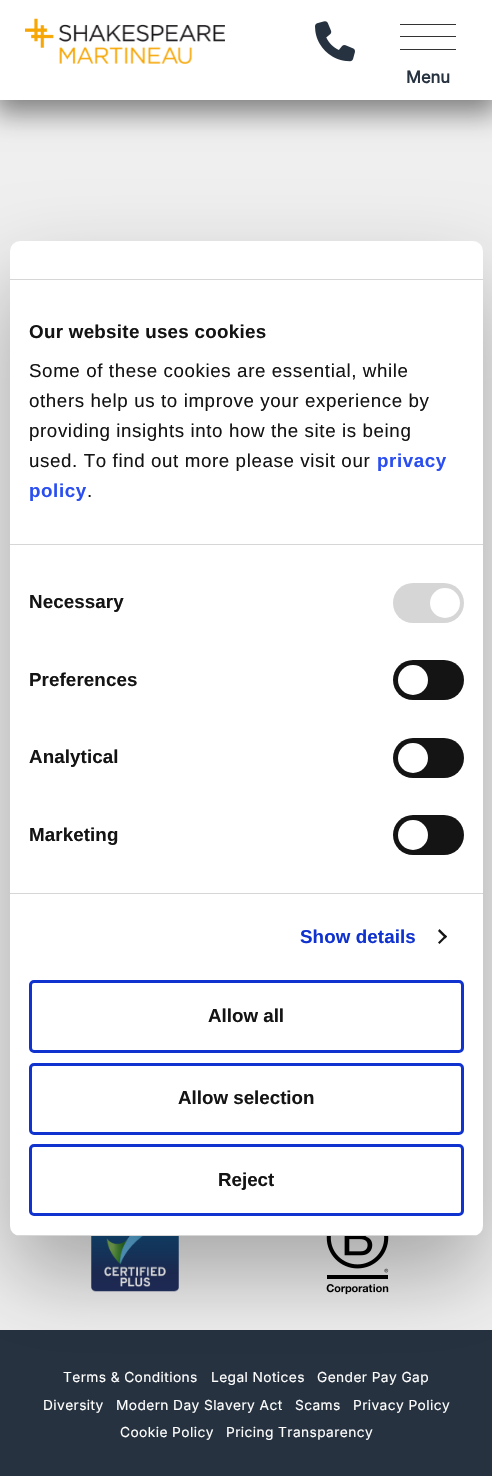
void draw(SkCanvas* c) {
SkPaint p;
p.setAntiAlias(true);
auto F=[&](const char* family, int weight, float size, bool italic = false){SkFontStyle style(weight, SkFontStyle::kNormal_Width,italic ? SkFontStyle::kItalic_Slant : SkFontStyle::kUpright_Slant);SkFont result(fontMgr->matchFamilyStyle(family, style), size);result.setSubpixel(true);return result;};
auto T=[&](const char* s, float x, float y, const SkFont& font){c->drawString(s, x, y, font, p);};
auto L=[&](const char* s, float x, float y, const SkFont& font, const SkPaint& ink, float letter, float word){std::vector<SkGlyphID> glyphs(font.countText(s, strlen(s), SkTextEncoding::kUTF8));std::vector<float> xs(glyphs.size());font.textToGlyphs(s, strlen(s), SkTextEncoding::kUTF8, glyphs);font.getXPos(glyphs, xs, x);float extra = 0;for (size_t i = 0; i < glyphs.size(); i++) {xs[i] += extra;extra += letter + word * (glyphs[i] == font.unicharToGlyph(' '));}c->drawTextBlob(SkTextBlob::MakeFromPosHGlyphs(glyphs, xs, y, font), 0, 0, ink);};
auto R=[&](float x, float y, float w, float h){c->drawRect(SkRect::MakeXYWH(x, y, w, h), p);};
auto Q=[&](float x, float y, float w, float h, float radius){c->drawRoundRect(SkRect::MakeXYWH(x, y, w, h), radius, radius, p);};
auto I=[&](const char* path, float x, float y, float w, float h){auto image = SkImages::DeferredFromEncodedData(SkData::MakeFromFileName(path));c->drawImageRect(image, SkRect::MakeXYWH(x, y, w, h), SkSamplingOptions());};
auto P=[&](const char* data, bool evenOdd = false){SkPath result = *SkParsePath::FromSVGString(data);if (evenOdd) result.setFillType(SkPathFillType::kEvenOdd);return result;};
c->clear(0xffefefef);
p.setColor(0x33000000);
p.setMaskFilter(SkMaskFilter::MakeBlur(kNormal_SkBlurStyle, 12.5));
c->drawRect(SkRect::MakeXYWH(0,4,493,89),p);
p.setMaskFilter(nullptr);
p.setColor(0x66000000);
p.setMaskFilter(SkMaskFilter::MakeBlur(kNormal_SkBlurStyle, 12.5));
c->drawRect(SkRect::MakeXYWH(-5,5,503,110),p);
p.setMaskFilter(nullptr);
p.setColor(0xffffffff);
R(0,0,492,100);
I("1.png",25,18,200,46);
I("2.png",315,21,40,41);
p.setColor(0xff333333);
R(400,36,56,1);
R(400,24,56,1);
R(400,49,56,1);
auto f1 = F("Inter",700,16.5);
p.setColor(0xff263240);
T("Menu",406,83,f1);
I("3.png",91,1236,88,56);
I("4.png",326,1236,63,59);
R(0,1330,492,146);
p.setColor(0x4d000000);
p.setMaskFilter(SkMaskFilter::MakeBlur(kNormal_SkBlurStyle, 42.5));
c->drawRoundRect(SkRect::MakeXYWH(10,281,473,995),10,10,p);
p.setMaskFilter(nullptr);
p.setColor(0xffffffff);
Q(10,241,473,995,10);
p.setColor(0xffd6d6d6);
R(10,279,473,1);
R(10,544,473,1);
auto f2 = F("Liberation Sans",700,18.75);
p.setColor(0xff141414);
L("Our website uses cookies",29,338,f2,p,.3,0);
auto f3 = F("Liberation Sans",400,18.75);
L("Some of these cookies are essential, while",29,377,f3,p,.6,0);
L("others help us to improve your experience by",29,407,f3,p,.6,0);
L("providing insights into how the site is being",29,437,f3,p,.6,0);
L("used. To find out more please visit our",29,467,f3,p,.6,0);
p.setColor(0xff2a4eef);
L("privacy",377,467,f2,p,.6,0);
L("policy",29,497,f2,p,.6,0);
p.setColor(0xff141414);
L(".",87,497,f3,p,.6,0);
p.setColor(0xffd6d6d6);
R(10,893,473,1);
p.setColor(0xff141414);
L("Necessary",29,608,f2,p,.1,0);
p.setColor(0xffd6d6d6);
Q(393,583,71,40,20);
p.setColor(0xffffffff);
c->drawCircle(445,603,15,p);
p.setColor(0xff141414);
L("Preferences",29,686,f2,p,.1,0);
Q(393,660,71,40,20);
p.setColor(0xffffffff);
c->drawCircle(413,680,15,p);
p.setColor(0xff141414);
L("Analytical",29,763,f2,p,.1,0);
Q(393,738,71,40,20);
p.setColor(0xffffffff);
c->drawCircle(413,758,15,p);
p.setColor(0xff141414);
L("Marketing",29,841,f2,p,.1,0);
Q(393,815,71,40,20);
p.setColor(0xffffffff);
c->drawCircle(413,835,15,p);
p.setColor(0xff1032cf);
L("Show details",300,943,f2,p,.1,0);
p.setColor(0xff141414);
c->drawPath(P("M439.5 929l7.5 7.5l-1.5 2l-7.5-7.5z"),p);
c->drawPath(P("M445.5 935l1.5 1.5l-7.5 7.5l-1.5-1.5z"),p);
c->save();
c->clipPath(P("M20 241h453c5.5 0 10 4.5 10 10v975c0 5.5-4.5 10-10 10h-453c-5.5 0-10-4.5-10-10v-975c0-5.5 4.5-10 10-10z"),true);
p.setColor(0xffd6d6d6);
R(10,1235,473,1);
c->restore();
p.setStroke(true);
p.setStrokeWidth(3);
p.setColor(0xff1032cf);
c->drawRoundRect(SkRect::MakeXYWH(30.5,981.5,432,70),3.5,3.5,p);
p.setStroke(false);
p.setColor(0xff141414);
T("Allow all",208,1022,f2);
p.setStroke(true);
p.setColor(0xff1032cf);
c->drawRoundRect(SkRect::MakeXYWH(30.5,1064.5,432,69),3.5,3.5,p);
p.setStroke(false);
p.setColor(0xff141414);
T("Allow selection",178,1104,f2);
p.setStroke(true);
p.setColor(0xff1032cf);
c->drawRoundRect(SkRect::MakeXYWH(30.5,1145.5,432,69),3.5,3.5,p);
p.setStroke(false);
p.setColor(0xff141414);
T("Reject",218,1186,f2);
auto f4 = F("Inter",400,13.75);
p.setColor(0xffffffff);
L("Terms & Conditions",63,1382,f4,p,.4,0);
L("Legal Notices",211,1382,f4,p,.4,0);
L("Gender Pay Gap",317,1382,f4,p,.4,0);
L("Diversity",43,1410,f4,p,.4,0);
L("Modern Day Slavery Act",116,1410,f4,p,.4,0);
L("Scams",295,1410,f4,p,.4,0);
L("Privacy Policy",353,1410,f4,p,.4,0);
L("Cookie Policy",120,1437,f4,p,.4,0);
L("Pricing Transparency",226,1437,f4,p,.4,0);
}
